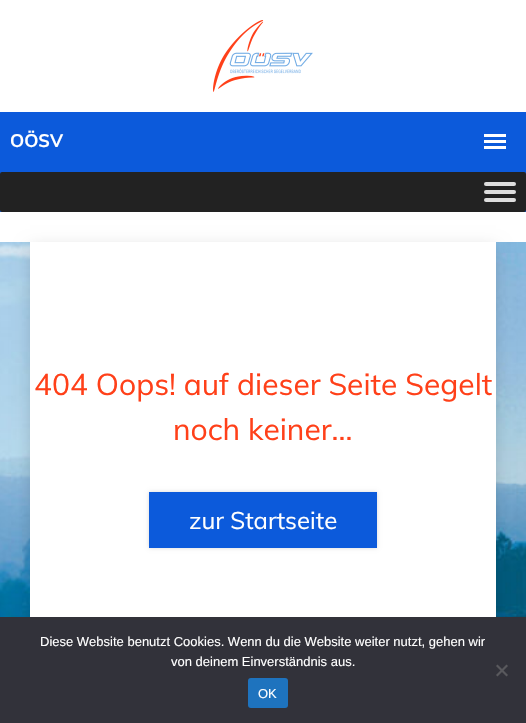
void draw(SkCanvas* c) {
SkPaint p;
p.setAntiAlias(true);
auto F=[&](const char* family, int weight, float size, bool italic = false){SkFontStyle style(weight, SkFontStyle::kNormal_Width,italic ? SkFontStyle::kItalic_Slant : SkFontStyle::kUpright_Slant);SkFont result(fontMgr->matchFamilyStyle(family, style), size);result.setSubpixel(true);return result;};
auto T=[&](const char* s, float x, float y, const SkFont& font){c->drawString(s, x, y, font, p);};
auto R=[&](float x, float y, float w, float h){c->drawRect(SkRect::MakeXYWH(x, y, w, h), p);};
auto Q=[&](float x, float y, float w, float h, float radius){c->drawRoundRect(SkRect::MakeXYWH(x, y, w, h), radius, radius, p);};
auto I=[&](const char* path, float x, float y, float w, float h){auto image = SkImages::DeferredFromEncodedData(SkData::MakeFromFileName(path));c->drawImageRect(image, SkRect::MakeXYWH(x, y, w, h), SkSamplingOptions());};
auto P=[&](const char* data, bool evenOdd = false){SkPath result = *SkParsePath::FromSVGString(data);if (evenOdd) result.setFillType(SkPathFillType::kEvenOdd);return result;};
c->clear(0xffffffff);
I("1.png",213,20,100,72);
p.setColor(0xff0c5adb);
R(0,112,526,100);
auto f1 = F("Muli",700,18);
p.setColor(0xffffffff);
T("OÖSV",10,147,f1);
R(484,134,22,3);
R(484,140,22,3);
R(484,146,22,3);
p.setColor(0xff222222);
Q(0,172,526,40,2);
p.setColor(0xffdddddd);
Q(484,182,32,4,2);
Q(484,190,32,4,2);
Q(484,198,32,4,2);
I("2.png",0,242,526,375);
p.setColor(0x26000000);
p.setMaskFilter(SkMaskFilter::MakeBlur(kNormal_SkBlurStyle, 7.5));
c->drawRect(SkRect::MakeXYWH(30,247,466,426),p);
p.setMaskFilter(nullptr);
p.setColor(0xffffffff);
R(30,242,466,375);
auto f2 = F("Muli",400,30);
p.setColor(0xffff4019);
T("404 Oops! auf dieser Seite Segelt",34,395,f2);
T("noch keiner...",173,440,f2);
p.setColor(0x26000000);
p.setMaskFilter(SkMaskFilter::MakeBlur(kNormal_SkBlurStyle, 2));
c->drawRect(SkRect::MakeXYWH(149,492,228,56),p);
p.setMaskFilter(nullptr);
p.setColor(0xff0c5adb);
R(149,492,228,56);
auto f3 = F("Muli",400,24);
p.setColor(0xffffffff);
T("zur Startseite",189,529,f3);
p.setColor(0xff32323a);
R(0,617,526,106);
auto f4 = F("Liberation Sans",400,13);
p.setColor(0xffffffff);
T("Diese Website benutzt Cookies. Wenn du die Website weiter nutzt, gehen wir",40,646,f4);
T("von deinem Einverständnis aus.",171,666,f4);
p.setColor(0xff59595d);
c->drawPath(P("M506.5 664.5l1.5 1.5l-10.5 10.5l-1.5-1.5z"),p);
c->drawPath(P("M496 666l1.5-1.5l10.5 10.5l-1.5 1.5z"),p);
p.setColor(0xff1e73be);
Q(248,678,40,30,3);
p.setColor(0xffffffff);
T("OK",258,698,f4);
}
